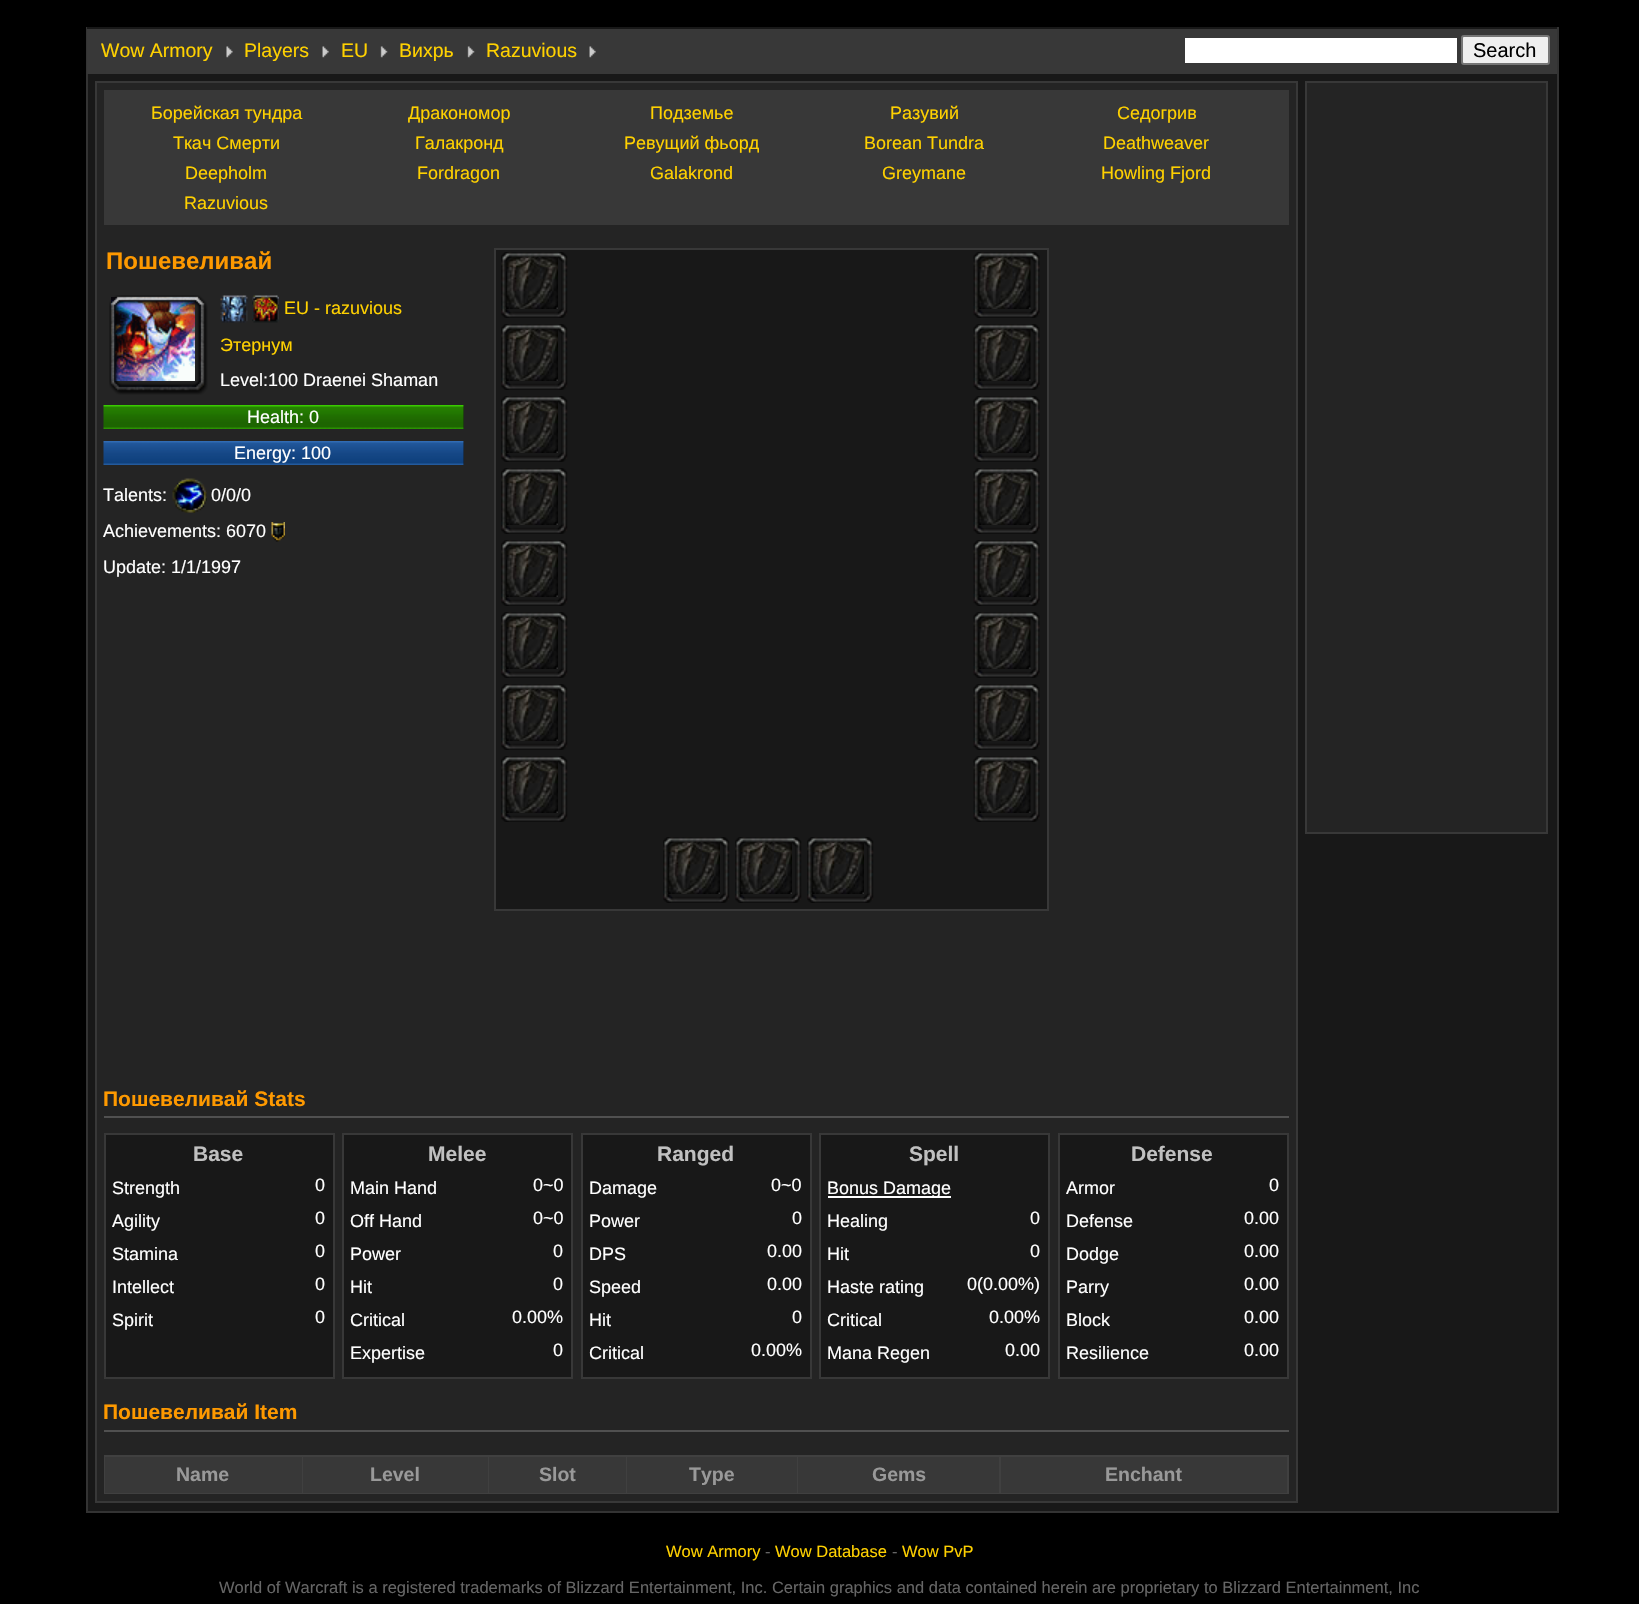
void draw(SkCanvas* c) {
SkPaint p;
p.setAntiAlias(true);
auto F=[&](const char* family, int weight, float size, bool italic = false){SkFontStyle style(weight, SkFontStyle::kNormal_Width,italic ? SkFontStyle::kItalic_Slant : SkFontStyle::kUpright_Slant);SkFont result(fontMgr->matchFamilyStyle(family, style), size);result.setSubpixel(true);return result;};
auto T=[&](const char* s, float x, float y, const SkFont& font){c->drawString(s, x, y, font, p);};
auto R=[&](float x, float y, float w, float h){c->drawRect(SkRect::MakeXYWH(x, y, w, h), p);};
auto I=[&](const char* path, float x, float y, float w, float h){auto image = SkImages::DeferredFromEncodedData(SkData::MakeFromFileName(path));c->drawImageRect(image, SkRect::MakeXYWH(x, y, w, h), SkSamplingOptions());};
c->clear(0xff000000);
p.setColor(0xff181818);
R(88,74,1469,1437);
p.setColor(0xff333333);
R(1557,27,2,1485);
R(86,1511,1473,2);
R(86,27,2,1485);
p.setColor(0xff383838);
R(87,29,1470,45);
p.setColor(0xff181818);
R(87,27,1470,2);
I("1.png",226,46,7,12);
auto f1 = F("Liberation Sans",400,19.5);
p.setColor(0xffffd100);
T("Wow Armory",101,57,f1);
I("2.png",322,46,7,12);
T("Players",244,57,f1);
I("3.png",380,46,8,12);
T("EU",341,57,f1);
I("4.png",467,46,8,12);
T("Вихрь",399,57,f1);
I("2.png",589,46,7,12);
T("Razuvious",486,57,f1);
p.setColor(0xffffffff);
R(1185,38,272,25);
p.setColor(0xffefefef);
c->drawRoundRect(SkRect::MakeXYWH(1462,36,87,28),2,2,p);
p.setStroke(true);
p.setStrokeWidth(2);
p.setColor(0xff767676);
c->drawRoundRect(SkRect::MakeXYWH(1462,36,87,28),2,2,p);
auto f2 = F("Liberation Sans",400,20);
p.setStroke(false);
p.setColor(0xff000000);
T("Search",1473,57,f2);
p.setColor(0xff242424);
c->drawRect(SkRect::MakeXYWH(96,82,1201,1420),p);
p.setStroke(true);
p.setColor(0xff383838);
c->drawRect(SkRect::MakeXYWH(96,82,1201,1420),p);
p.setStroke(false);
R(104,90,1185,135);
auto f3 = F("Liberation Sans",400,18);
p.setColor(0xffffd100);
T("Борейская тундра",151,119,f3);
T("Дракономор",408,119,f3);
T("Подземье",650,119,f3);
T("Разувий",890,119,f3);
T("Седогрив",1117,119,f3);
T("Ткач Смерти",173,149,f3);
T("Галакронд",415,149,f3);
T("Ревущий фьорд",624,149,f3);
T("Borean Tundra",864,149,f3);
T("Deathweaver",1103,149,f3);
T("Deepholm",185,179,f3);
T("Fordragon",417,179,f3);
T("Galakrond",650,179,f3);
T("Greymane",882,179,f3);
T("Howling Fjord",1101,179,f3);
T("Razuvious",184,209,f3);
auto f4 = F("Liberation Sans",700,24);
p.setColor(0xfffe9900);
T("Пошевеливай",106,269,f4);
I("5.png",111,297,84,84);
I("6.png",109,295,99,100);
I("7.png",220,295,28,28);
I("8.png",252,295,27,28);
p.setColor(0xffffd100);
T("EU - razuvious",284,314,f3);
T("Этернум",220,351,f3);
p.setColor(0xffffffff);
T("Level:100 Draenei Shaman",220,386,f3);
p.setColor(0xff181818);
R(463,405,1,24);
I("9.png",103,405,361,24);
p.setColor(0xffffffff);
T("Health: 0",247,423,f3);
p.setColor(0xff181818);
R(463,441,1,24);
I("10.png",103,441,361,24);
p.setColor(0xffffffff);
T("Energy: 100",234,459,f3);
T("Talents:",103,501,f3);
I("11.png",172,478,35,35);
T("0/0/0",211,501,f3);
T("Achievements: 6070",103,537,f3);
I("12.png",271,522,14,20);
T("Update: 1/1/1997",103,573,f3);
p.setColor(0xff181818);
c->drawRect(SkRect::MakeXYWH(495,249,553,661),p);
p.setStroke(true);
p.setColor(0xff383838);
c->drawRect(SkRect::MakeXYWH(495,249,553,661),p);
I("13.png",504,255,54,54);
I("14.png",501,252,67,66);
I("13.png",504,327,54,54);
I("14.png",501,324,67,66);
I("13.png",504,399,54,54);
I("14.png",501,396,67,66);
I("13.png",504,471,54,54);
I("14.png",501,468,67,66);
I("13.png",504,543,54,54);
I("14.png",501,540,67,66);
I("13.png",504,615,54,54);
I("14.png",501,612,67,66);
I("13.png",504,687,54,54);
I("14.png",501,684,67,66);
I("13.png",504,759,54,54);
I("14.png",501,756,67,66);
I("15.png",976,255,55,54);
I("16.png",973,252,67,66);
I("15.png",976,327,55,54);
I("16.png",973,324,67,66);
I("15.png",976,399,55,54);
I("16.png",973,396,67,66);
I("15.png",976,471,55,54);
I("16.png",973,468,67,66);
I("15.png",976,543,55,54);
I("16.png",973,540,67,66);
I("15.png",976,615,55,54);
I("16.png",973,612,67,66);
I("15.png",976,687,55,54);
I("16.png",973,684,67,66);
I("15.png",976,759,55,54);
I("16.png",973,756,67,66);
I("17.png",666,840,54,54);
I("18.png",663,837,67,66);
I("19.png",738,840,54,54);
I("20.png",735,837,67,66);
I("17.png",810,840,54,54);
I("18.png",807,837,67,66);
p.setStroke(false);
p.setColor(0xff505050);
R(104,1116,1185,2);
auto f5 = F("Liberation Sans",700,21);
p.setColor(0xfffe9900);
T("Пошевеливай Stats",103,1106,f5);
p.setColor(0xff181818);
c->drawRect(SkRect::MakeXYWH(105,1134,229,244),p);
p.setStroke(true);
p.setColor(0xff383838);
c->drawRect(SkRect::MakeXYWH(105,1134,229,244),p);
p.setStroke(false);
p.setColor(0xffc0c0c0);
T("Base",193,1161,f5);
p.setColor(0xffffffff);
T("Strength",112,1194,f3);
T("0",315,1191,f3);
T("Agility",112,1227,f3);
T("0",315,1224,f3);
T("Stamina",112,1260,f3);
T("0",315,1257,f3);
T("Intellect",112,1293,f3);
T("0",315,1290,f3);
T("Spirit",112,1326,f3);
T("0",315,1323,f3);
p.setColor(0xff181818);
c->drawRect(SkRect::MakeXYWH(343,1134,229,244),p);
p.setStroke(true);
p.setColor(0xff383838);
c->drawRect(SkRect::MakeXYWH(343,1134,229,244),p);
p.setStroke(false);
p.setColor(0xffc0c0c0);
T("Melee",428,1161,f5);
p.setColor(0xffffffff);
T("Main Hand",350,1194,f3);
T("0~0",533,1191,f3);
T("Off Hand",350,1227,f3);
T("0~0",533,1224,f3);
T("Power",350,1260,f3);
T("0",553,1257,f3);
T("Hit",350,1293,f3);
T("0",553,1290,f3);
T("Critical",350,1326,f3);
T("0.00%",512,1323,f3);
T("Expertise",350,1359,f3);
T("0",553,1356,f3);
p.setColor(0xff181818);
c->drawRect(SkRect::MakeXYWH(582,1134,229,244),p);
p.setStroke(true);
p.setColor(0xff383838);
c->drawRect(SkRect::MakeXYWH(582,1134,229,244),p);
p.setStroke(false);
p.setColor(0xffc0c0c0);
T("Ranged",657,1161,f5);
p.setColor(0xffffffff);
T("Damage",589,1194,f3);
T("0~0",771,1191,f3);
T("Power",589,1227,f3);
T("0",792,1224,f3);
T("DPS",589,1260,f3);
T("0.00",767,1257,f3);
T("Speed",589,1293,f3);
T("0.00",767,1290,f3);
T("Hit",589,1326,f3);
T("0",792,1323,f3);
T("Critical",589,1359,f3);
T("0.00%",751,1356,f3);
p.setColor(0xff181818);
c->drawRect(SkRect::MakeXYWH(820,1134,229,244),p);
p.setStroke(true);
p.setColor(0xff383838);
c->drawRect(SkRect::MakeXYWH(820,1134,229,244),p);
p.setStroke(false);
p.setColor(0xffc0c0c0);
T("Spell",909,1161,f5);
p.setColor(0xffffffff);
R(828,1196,123,2);
T("Bonus Damage",827,1194,f3);
T("Healing",827,1227,f3);
T("0",1030,1224,f3);
T("Hit",827,1260,f3);
T("0",1030,1257,f3);
T("Haste rating",827,1293,f3);
T("0(0.00%)",967,1290,f3);
T("Critical",827,1326,f3);
T("0.00%",989,1323,f3);
T("Mana Regen",827,1359,f3);
T("0.00",1005,1356,f3);
p.setColor(0xff181818);
c->drawRect(SkRect::MakeXYWH(1059,1134,229,244),p);
p.setStroke(true);
p.setColor(0xff383838);
c->drawRect(SkRect::MakeXYWH(1059,1134,229,244),p);
p.setStroke(false);
p.setColor(0xffc0c0c0);
T("Defense",1131,1161,f5);
p.setColor(0xffffffff);
T("Armor",1066,1194,f3);
T("0",1269,1191,f3);
T("Defense",1066,1227,f3);
T("0.00",1244,1224,f3);
T("Dodge",1066,1260,f3);
T("0.00",1244,1257,f3);
T("Parry",1066,1293,f3);
T("0.00",1244,1290,f3);
T("Block",1066,1326,f3);
T("0.00",1244,1323,f3);
T("Resilience",1066,1359,f3);
T("0.00",1244,1356,f3);
p.setColor(0xff505050);
R(104,1430,1185,2);
p.setColor(0xfffe9900);
T("Пошевеливай Item",103,1419,f5);
p.setColor(0xff404040);
R(104,1455,1185,39);
p.setColor(0xff383838);
R(105,1457,197,36);
auto f6 = F("Liberation Sans",700,19.5);
p.setColor(0xff999999);
T("Name",176,1481,f6);
p.setColor(0xff383838);
R(303,1457,185,36);
p.setColor(0xff999999);
T("Level",370,1481,f6);
p.setColor(0xff383838);
R(489,1457,137,36);
p.setColor(0xff999999);
T("Slot",539,1481,f6);
p.setColor(0xff383838);
R(627,1457,170,36);
p.setColor(0xff999999);
T("Type",689,1481,f6);
p.setColor(0xff383838);
R(798,1457,201,36);
p.setColor(0xff999999);
T("Gems",872,1481,f6);
p.setColor(0xff383838);
R(1001,1457,286,36);
p.setColor(0xff999999);
T("Enchant",1105,1481,f6);
p.setColor(0xff242424);
c->drawRect(SkRect::MakeXYWH(1306,82,241,751),p);
p.setStroke(true);
p.setColor(0xff383838);
c->drawRect(SkRect::MakeXYWH(1306,82,241,751),p);
auto f7 = F("Liberation Sans",400,16.5);
p.setStroke(false);
p.setColor(0xffffd100);
T("Wow Armory",666,1557,f7);
p.setColor(0xff666666);
T("-",765,1557,f7);
p.setColor(0xffffd100);
T("Wow Database",775,1557,f7);
p.setColor(0xff666666);
T("-",892,1557,f7);
p.setColor(0xffffd100);
T("Wow PvP",902,1557,f7);
p.setColor(0xff666666);
T("World of Warcraft is a registered trademarks of Blizzard Entertainment, Inc. Certain graphics and data contained herein are proprietary to Blizzard Entertainment, Inc",219,1593,f7);
}
